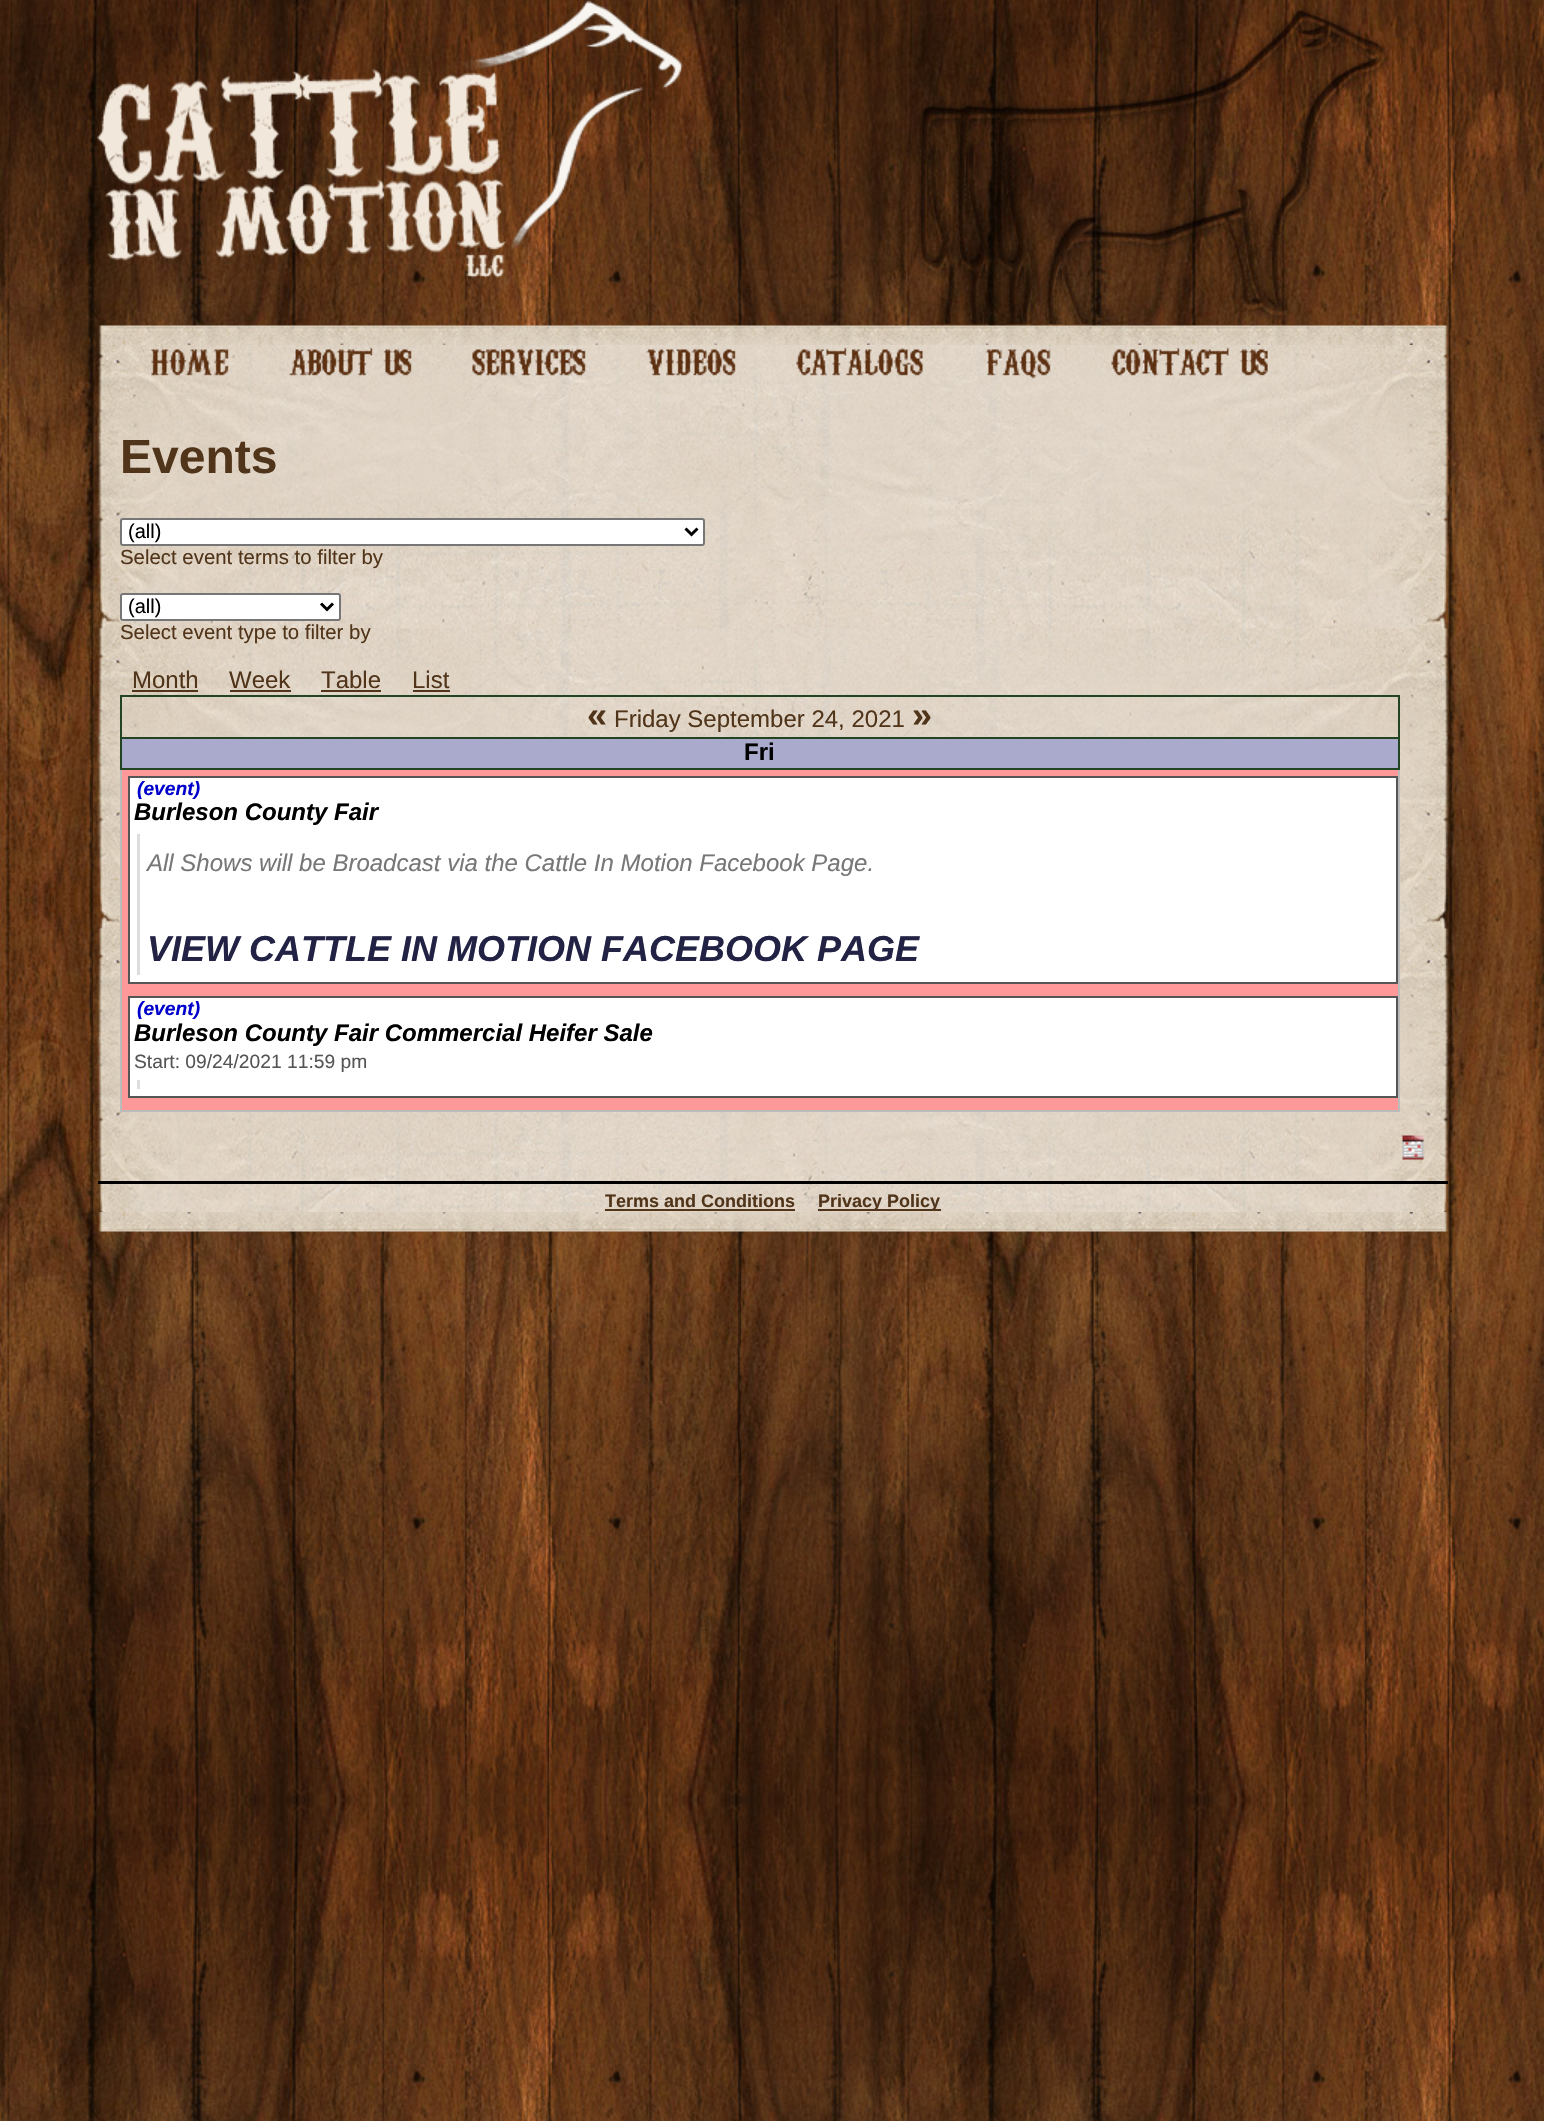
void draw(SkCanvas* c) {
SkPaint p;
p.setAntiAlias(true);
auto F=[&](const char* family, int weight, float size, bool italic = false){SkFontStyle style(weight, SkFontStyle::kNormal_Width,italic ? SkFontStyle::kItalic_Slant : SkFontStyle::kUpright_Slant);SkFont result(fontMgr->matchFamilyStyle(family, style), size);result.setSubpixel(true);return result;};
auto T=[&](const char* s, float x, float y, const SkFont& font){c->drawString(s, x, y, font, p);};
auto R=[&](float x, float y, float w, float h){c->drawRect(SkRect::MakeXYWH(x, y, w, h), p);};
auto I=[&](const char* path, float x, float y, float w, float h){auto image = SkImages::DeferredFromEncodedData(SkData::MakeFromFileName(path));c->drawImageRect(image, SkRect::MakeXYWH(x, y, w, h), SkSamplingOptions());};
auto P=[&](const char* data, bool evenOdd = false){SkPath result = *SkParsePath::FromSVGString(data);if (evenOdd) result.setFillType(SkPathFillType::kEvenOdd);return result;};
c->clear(0xffffffff);
I("1.png",0,0,1544,2121);
I("2.png",97,0,586,291);
I("3.png",883,0,568,324);
I("4.png",98,325,1350,20);
I("5.png",97,345,1351,867);
I("6.png",150,349,79,27);
I("7.png",289,347,123,29);
I("8.png",472,349,114,27);
I("9.png",646,349,90,27);
I("10.png",796,347,127,29);
I("11.png",985,349,67,30);
I("12.png",1111,347,157,29);
auto f1 = F("Liberation Sans",700,48);
p.setColor(0xff51351a);
T("Events",120,473,f1);
p.setColor(0xffffffff);
c->drawRoundRect(SkRect::MakeXYWH(121,519,583,26),2,2,p);
p.setStroke(true);
p.setStrokeWidth(2);
p.setColor(0xff767676);
c->drawRoundRect(SkRect::MakeXYWH(121,519,583,26),2,2,p);
p.setStrokeWidth(3);
p.setColor(0xff000000);
c->drawPath(P("M685.5 528.5l6 6l6-6"),p);
auto f2 = F("Liberation Sans",400,20);
p.setStroke(false);
T("(all)",128,538,f2);
auto f3 = F("Liberation Sans",400,20.4);
p.setColor(0xff51351a);
T("Select event terms to filter by",120,564,f3);
p.setColor(0xffffffff);
c->drawRoundRect(SkRect::MakeXYWH(121,594,219,26),2,2,p);
p.setStroke(true);
p.setStrokeWidth(2);
p.setColor(0xff767676);
c->drawRoundRect(SkRect::MakeXYWH(121,594,219,26),2,2,p);
p.setStrokeWidth(3);
p.setColor(0xff000000);
c->drawPath(P("M321 603.5l6 6l6-6"),p);
p.setStroke(false);
T("(all)",128,613,f2);
p.setColor(0xff51351a);
T("Select event type to filter by",120,639,f3);
auto f4 = F("Liberation Sans",400,24);
T("Month",132,688,f4);
R(132,690,66,2);
T("Week",229,688,f4);
R(230,690,61,2);
T("Table",321,688,f4);
R(321,690,60,2);
T("List",412,688,f4);
R(413,690,37,2);
p.setColor(0xff224422);
R(120,695,1280,2);
R(1398,695,2,42);
R(120,695,2,73);
auto f5 = F("Liberation Sans",700,36);
p.setColor(0xff51351a);
T("«",587,727,f5);
T("Friday September 24, 2021",614,727,f4);
T("»",912,727,f5);
p.setColor(0xffaaaacc);
R(122,739,1276,29);
p.setColor(0xff224422);
R(120,737,1280,2);
p.setColor(0xffbbbbbb);
R(1398,768,2,344);
p.setColor(0xff224422);
R(1398,737,2,33);
p.setColor(0xffbbbbbb);
R(120,1110,1280,2);
R(120,768,2,344);
p.setColor(0xff224422);
R(120,768,1280,2);
auto f6 = F("Liberation Sans",700,24);
p.setColor(0xff000000);
T("Fri",744,760,f6);
p.setColor(0xffff9999);
R(122,770,1276,340);
p.setColor(0xffffffff);
c->drawRect(SkRect::MakeXYWH(129,777,1268,206),p);
p.setStroke(true);
p.setStrokeWidth(2);
p.setColor(0xff555555);
c->drawRect(SkRect::MakeXYWH(129,777,1268,206),p);
auto f7 = F("Liberation Sans",700,19.25,true);
p.setStroke(false);
p.setColor(0xff0000cc);
T("(event)",137,795,f7);
auto f8 = F("Liberation Sans",700,24,true);
p.setColor(0xff000000);
T("Burleson County Fair",134,820,f8);
p.setColor(0xffdddddd);
R(137,834,3,141);
auto f9 = F("Liberation Sans",400,24,true);
p.setColor(0xff777777);
T("All Shows will be Broadcast via the Cattle In Motion Facebook Page.",147,871,f9);
auto f10 = F("Liberation Sans",700,36,true);
p.setColor(0xff222244);
T("VIEW CATTLE IN MOTION FACEBOOK PAGE",147,961,f10);
p.setColor(0xffffffff);
c->drawRect(SkRect::MakeXYWH(129,997,1268,100),p);
p.setStroke(true);
p.setColor(0xff555555);
c->drawRect(SkRect::MakeXYWH(129,997,1268,100),p);
p.setStroke(false);
p.setColor(0xff0000cc);
T("(event)",137,1015,f7);
p.setColor(0xff000000);
T("Burleson County Fair Commercial Heifer Sale",134,1041,f8);
auto f11 = F("Liberation Sans",400,19.25);
p.setColor(0xff555555);
T("Start: 09/24/2021 11:59 pm",134,1068,f11);
p.setColor(0xffdddddd);
R(137,1080,3,9);
I("13.png",1402,1135,22,25);
p.setColor(0xff000000);
R(98,1181,1350,3);
auto f12 = F("Liberation Sans",700,18);
p.setColor(0xff51351a);
T("Terms and Conditions",605,1207,f12);
R(605,1209,190,2);
R(818,1209,123,2);
T("Privacy Policy",818,1207,f12);
I("14.png",98,1212,1350,20);
}
